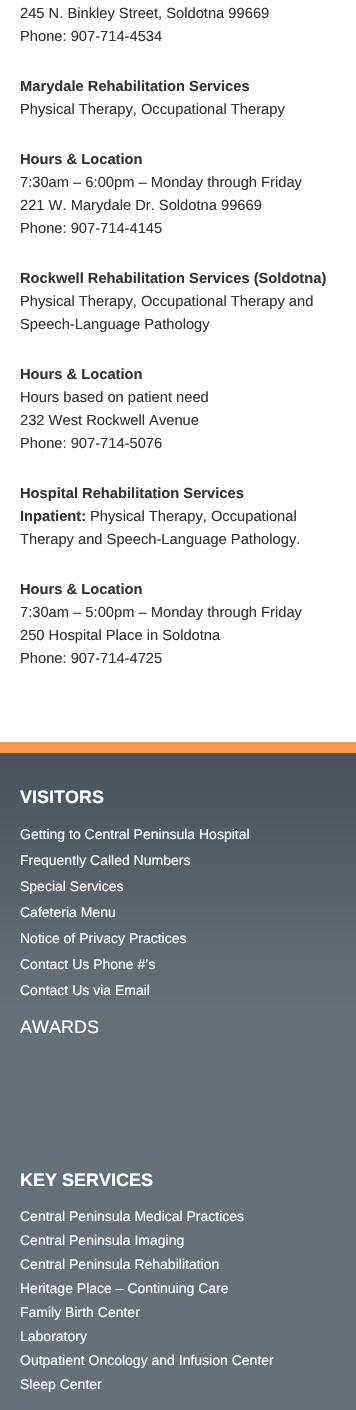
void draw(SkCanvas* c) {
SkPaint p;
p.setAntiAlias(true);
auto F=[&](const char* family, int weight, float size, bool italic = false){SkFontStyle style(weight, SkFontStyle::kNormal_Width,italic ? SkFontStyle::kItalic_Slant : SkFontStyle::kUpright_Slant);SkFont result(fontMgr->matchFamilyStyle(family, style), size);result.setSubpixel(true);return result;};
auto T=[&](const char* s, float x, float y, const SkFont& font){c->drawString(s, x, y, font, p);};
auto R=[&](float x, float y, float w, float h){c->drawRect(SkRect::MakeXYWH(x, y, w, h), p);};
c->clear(0xffffffff);
auto f1 = F("Liberation Sans",400,14.7);
p.setColor(0xff333333);
T("245 N. Binkley Street, Soldotna 99669",20,18,f1);
T("Phone: 907-714-4534",20,41,f1);
auto f2 = F("Liberation Sans",700,14.7);
T("Marydale Rehabilitation Services",20,91,f2);
T("Physical Therapy, Occupational Therapy",20,114,f1);
T("Hours & Location",20,164,f2);
T("7:30am – 6:00pm – Monday through Friday",20,187,f1);
T("221 W. Marydale Dr. Soldotna 99669",20,210,f1);
T("Phone: 907-714-4145",20,233,f1);
T("Rockwell Rehabilitation Services (Soldotna)",20,283,f2);
T("Physical Therapy, Occupational Therapy and",20,306,f1);
T("Speech-Language Pathology",20,329,f1);
T("Hours & Location",20,379,f2);
T("Hours based on patient need",20,402,f1);
T("232 West Rockwell Avenue",20,425,f1);
T("Phone: 907-714-5076",20,448,f1);
T("Hospital Rehabilitation Services",20,498,f2);
T("Inpatient:",20,521,f2);
T("Physical Therapy, Occupational",90,521,f1);
T("Therapy and Speech-Language Pathology.",20,544,f1);
T("Hours & Location",20,594,f2);
T("7:30am – 5:00pm – Monday through Friday",20,617,f1);
T("250 Hospital Place in Soldotna",20,640,f1);
T("Phone: 907-714-4725",20,663,f1);
{
const SkColor colors[] = {0xff4a535b,0xff677077};
const float stops[] = {0,.27};
const SkPoint ends[] = {{178,753}, {178,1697}};
p.setShader(SkGradientShader::MakeLinear(ends, colors, stops, 2, SkTileMode::kClamp));
p.setAlpha(255);
}
R(0,753,356,657);
p.setShader(nullptr);
p.setColor(0xfff7974c);
R(0,742,356,11);
auto f3 = F("Liberation Sans",700,18);
p.setColor(0xffffffff);
T("VISITORS",20,803,f3);
auto f4 = F("Liberation Sans",400,14);
T("Getting to Central Peninsula Hospital",20,839,f4);
T("Frequently Called Numbers",20,865,f4);
T("Special Services",20,891,f4);
T("Cafeteria Menu",20,917,f4);
T("Notice of Privacy Practices",20,943,f4);
T("Contact Us Phone #’s",20,969,f4);
T("Contact Us via Email",20,995,f4);
auto f5 = F("Liberation Sans",400,18);
T("AWARDS",20,1033,f5);
T("KEY SERVICES",20,1186,f3);
T("Central Peninsula Medical Practices",20,1221,f4);
T("Central Peninsula Imaging",20,1245,f4);
T("Central Peninsula Rehabilitation",20,1269,f4);
T("Heritage Place – Continuing Care",20,1293,f4);
T("Family Birth Center",20,1317,f4);
T("Laboratory",20,1341,f4);
T("Outpatient Oncology and Infusion Center",20,1365,f4);
T("Sleep Center",20,1389,f4);
}
